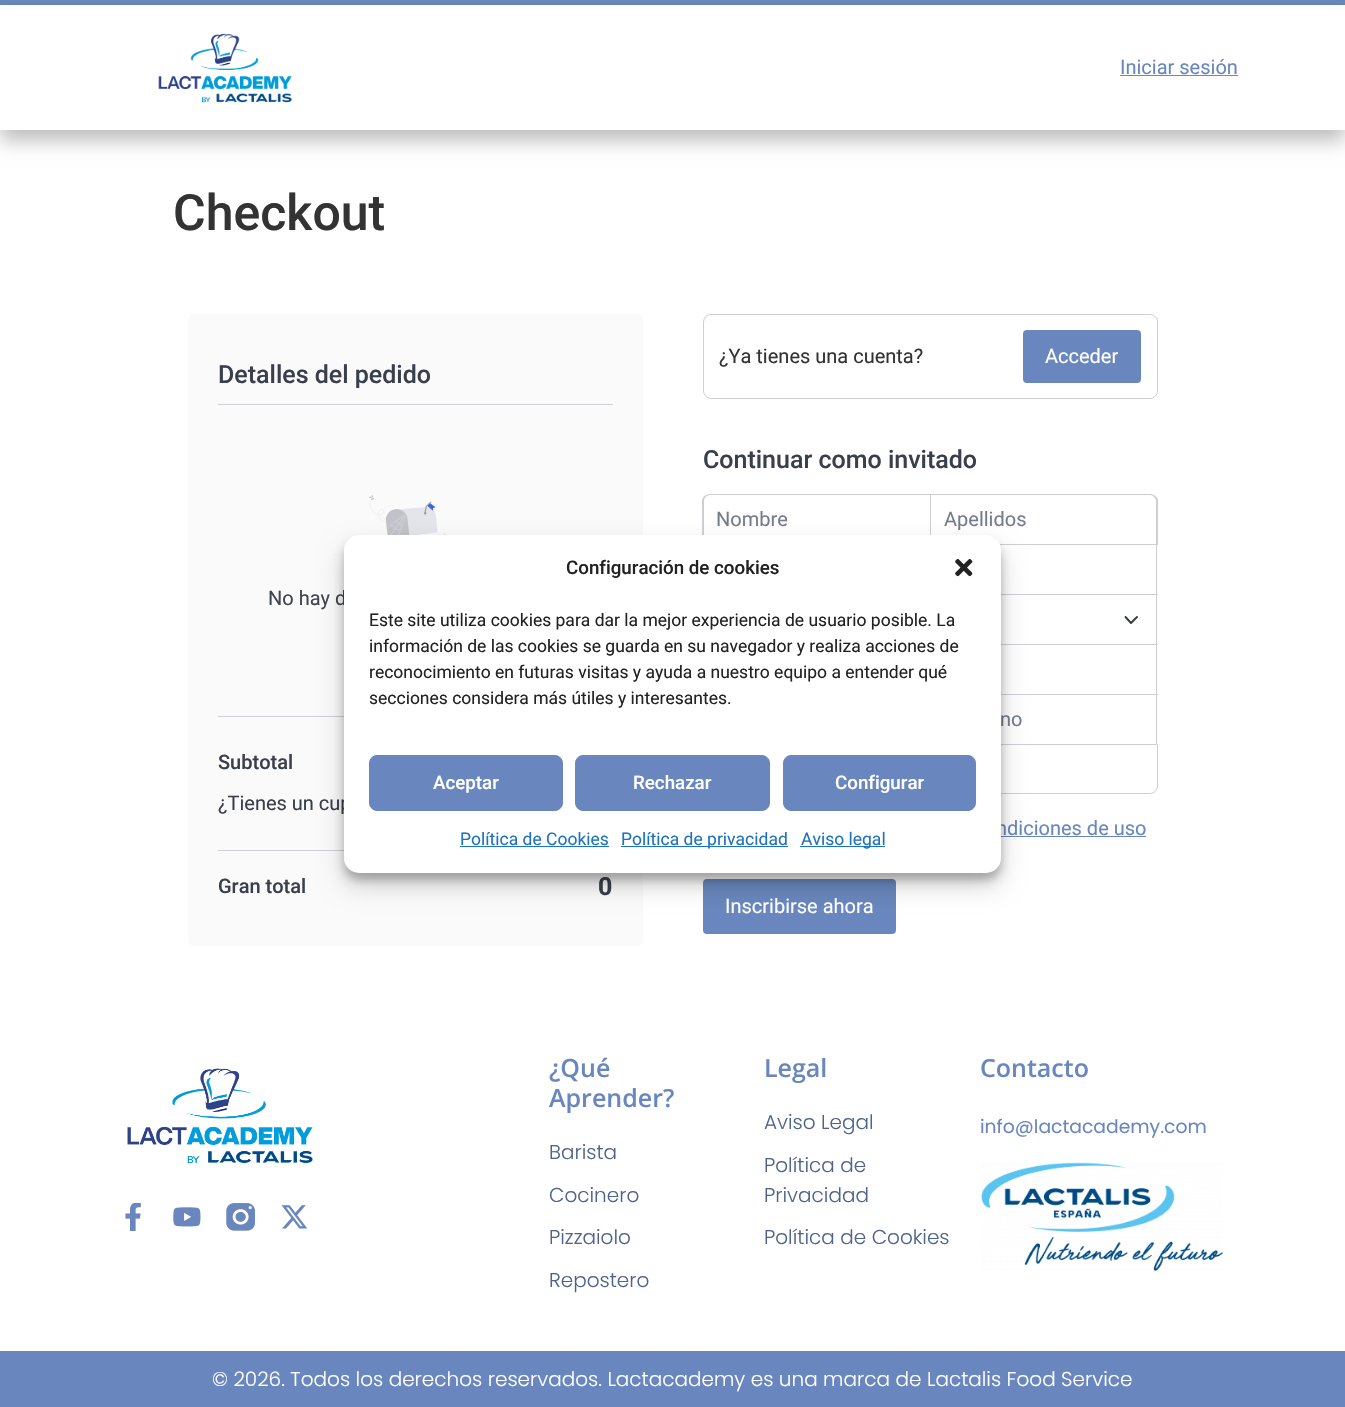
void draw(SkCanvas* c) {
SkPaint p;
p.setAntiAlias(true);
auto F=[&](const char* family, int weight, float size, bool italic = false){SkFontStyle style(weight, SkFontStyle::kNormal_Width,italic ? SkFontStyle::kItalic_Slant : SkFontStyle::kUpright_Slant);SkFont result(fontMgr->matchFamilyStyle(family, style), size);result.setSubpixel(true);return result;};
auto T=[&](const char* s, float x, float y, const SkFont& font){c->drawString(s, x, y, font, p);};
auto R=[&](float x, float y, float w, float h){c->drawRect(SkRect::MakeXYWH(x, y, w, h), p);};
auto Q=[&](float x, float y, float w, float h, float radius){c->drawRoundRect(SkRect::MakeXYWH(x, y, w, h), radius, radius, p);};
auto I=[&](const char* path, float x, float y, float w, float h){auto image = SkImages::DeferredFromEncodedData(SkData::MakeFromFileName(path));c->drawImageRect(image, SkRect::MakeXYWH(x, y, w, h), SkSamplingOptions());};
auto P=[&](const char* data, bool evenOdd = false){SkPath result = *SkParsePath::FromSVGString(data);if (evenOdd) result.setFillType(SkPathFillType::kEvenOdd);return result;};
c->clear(0xffffffff);
p.setColor(0xff6987be);
R(0,0,1345,5);
c->save();
c->clipPath(P("M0 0h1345v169h-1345zm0 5h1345v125h-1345z",true),true);
p.setColor(0x40000000);
p.setMaskFilter(SkMaskFilter::MakeBlur(kNormal_SkBlurStyle, 9));
c->drawRect(SkRect::MakeXYWH(0,16,1345,125),p);
p.setMaskFilter(nullptr);
c->restore();
I("1.png",158,33,134,70);
auto f1 = F("Roboto",400,20);
p.setColor(0xff6987be);
T("Iniciar sesión",1120,74,f1);
R(1120,75,118,1);
auto f2 = F("Roboto",500,50);
p.setColor(0xff333333);
T("Checkout",173,230,f2);
p.setColor(0xfffafafa);
Q(188,314,455,632,6);
p.setColor(0xffcdcfd5);
R(218,404,395,1);
auto f3 = F("Roboto",500,25);
p.setColor(0xff393f4c);
T("Detalles del pedido",218,383,f3);
p.setColor(0xffcdcfd5);
R(218,716,126,1);
I("2.png",333,495,131,61);
p.setColor(0xff41454f);
T("No hay d",268,605,f1);
p.setColor(0xffcdcfd5);
R(218,850,126,1);
auto f4 = F("Roboto",500,20);
p.setColor(0xff393f4c);
T("Subtotal",218,769,f4);
T("¿Tienes un cup",218,810,f1);
T("Gran total",218,893,f4);
auto f5 = F("Roboto",700,25);
T("0",598,895,f5);
p.setStroke(true);
p.setStrokeWidth(1);
p.setColor(0xffcdcfd5);
c->drawRoundRect(SkRect::MakeXYWH(703.5,314.5,454,84),7.5,7.5,p);
p.setStroke(false);
p.setColor(0xff333333);
T("¿Ya tienes una cuenta?",719,363,f1);
p.setColor(0xff6987be);
c->drawRoundRect(SkRect::MakeXYWH(1024.5,331.5,115,50),2.5,2.5,p);
p.setStroke(true);
p.setStrokeWidth(3);
c->drawRoundRect(SkRect::MakeXYWH(1024.5,331.5,115,50),2.5,2.5,p);
p.setStroke(false);
p.setColor(0xffffffff);
T("Acceder",1045,363,f1);
p.setColor(0xff393f4c);
T("Continuar como invitado",703,468,f3);
p.setColor(0xffcdcfd5);
c->drawPath(P("M710 494h220v50h-228v-43c0-4 4-7 8-7zm0 1h220v49h-226v-43c0-3 3-6 6-6z",true),p);
p.setColor(0xff757c8e);
T("Nombre",716,526,f1);
p.setColor(0xffcdcfd5);
c->drawPath(P("M930 494h220c4 0 8 3 8 7v43h-228zm1 1h219c3 0 6 3 6 6v43h-225z",true),p);
p.setColor(0xff757c8e);
T("Apellidos",944,526,f1);
p.setColor(0xffcdcfd5);
R(999,544,159,1);
R(1156,544,1,50);
p.setStroke(true);
p.setStrokeWidth(1.9);
p.setStrokeCap(SkPaint::kRound_Cap);
p.setStrokeJoin(SkPaint::kRound_Join);
p.setColor(0xff343a40);
c->drawPath(P("M1125.5 617l5.5 6l6-6"),p);
p.setStroke(false);
p.setColor(0xffcdcfd5);
R(1001,594,157,1);
R(1156,594,1,50);
R(1001,644,157,1);
R(1156,644,1,50);
R(1001,694,157,1);
R(1156,694,1,50);
p.setColor(0xff757c8e);
T("no",1000,726,f1);
p.setStroke(true);
p.setStrokeWidth(1);
p.setStrokeCap(SkPaint::kButt_Cap);
p.setStrokeJoin(SkPaint::kMiter_Join);
p.setColor(0xffcdcfd5);
c->drawPath(P("M703.5 744.5h454v41.5c0 4-3.5 7.5-7.5 7.5h-439c-4 0-7.5-3.5-7.5-7.5z"),p);
p.setStroke(false);
p.setColor(0xff6987be);
T("ndiciones de uso",996,835,f1);
R(1001,836,145,1);
c->drawRoundRect(SkRect::MakeXYWH(704.5,880.5,190,52),2.5,2.5,p);
p.setStroke(true);
p.setStrokeWidth(3);
c->drawRoundRect(SkRect::MakeXYWH(704.5,880.5,190,52),2.5,2.5,p);
p.setStroke(false);
p.setColor(0xffffffff);
T("Inscribirse ahora",725,913,f1);
p.setColor(0x3b000000);
p.setMaskFilter(SkMaskFilter::MakeBlur(kNormal_SkBlurStyle, 4));
c->drawRoundRect(SkRect::MakeXYWH(344,543,657,337),15,15,p);
p.setMaskFilter(nullptr);
p.setColor(0x30000000);
p.setMaskFilter(SkMaskFilter::MakeBlur(kNormal_SkBlurStyle, 12.5));
c->drawRoundRect(SkRect::MakeXYWH(344,548,657,337),15,15,p);
p.setMaskFilter(nullptr);
p.setColor(0xffffffff);
Q(344,535,657,338,15);
auto f6 = F("Roboto",500,18.75);
p.setColor(0xff222222);
T("Configuración de cookies",566,574,f6);
I("3.png",955,559,18,18);
auto f7 = F("Roboto",400,17.5);
T("Este site utiliza cookies para dar la mejor experiencia de usuario posible. La",369,626,f7);
T("información de las cookies se guarda en su navegador y realiza acciones de",369,652,f7);
T("reconocimiento en futuras visitas y ayuda a nuestro equipo a entender qué",369,678,f7);
T("secciones considera más útiles y interesantes.",369,704,f7);
p.setColor(0xff6987be);
c->drawRoundRect(SkRect::MakeXYWH(369.5,755.5,193,55),7.5,7.5,p);
p.setStroke(true);
p.setStrokeWidth(1);
c->drawRoundRect(SkRect::MakeXYWH(369.5,755.5,193,55),7.5,7.5,p);
p.setStroke(false);
p.setColor(0xffffffff);
T("Aceptar",433,789,f6);
p.setColor(0xff6987be);
c->drawRoundRect(SkRect::MakeXYWH(575.5,755.5,194,55),7.5,7.5,p);
p.setStroke(true);
c->drawRoundRect(SkRect::MakeXYWH(575.5,755.5,194,55),7.5,7.5,p);
p.setStroke(false);
p.setColor(0xffffffff);
T("Rechazar",633,789,f6);
p.setColor(0xff6987be);
c->drawRoundRect(SkRect::MakeXYWH(783.5,755.5,192,55),7.5,7.5,p);
p.setStroke(true);
c->drawRoundRect(SkRect::MakeXYWH(783.5,755.5,192,55),7.5,7.5,p);
p.setStroke(false);
p.setColor(0xffffffff);
T("Configurar",835,789,f6);
p.setColor(0xff1e73be);
T("Política de Cookies",460,845,f7);
R(460,846,149,1);
R(621,846,167,1);
T("Política de privacidad",621,845,f7);
R(800,846,85,1);
T("Aviso legal",801,845,f7);
I("4.png",127,1068,186,96);
I("5.png",125,1203,16,28);
I("6.png",173,1207,28,20);
I("7.png",226,1203,29,28);
I("8.png",281,1205,27,24);
auto f8 = F("Open Sans",600,25);
p.setColor(0xff6987be);
T("¿Qué",549,1077,f8);
T("Aprender?",549,1107,f8);
auto f9 = F("Poppins",300,20);
p.setColor(0xff4e638b);
T("Barista",549,1159,f9);
T("Cocinero",549,1202,f9);
T("Pizzaiolo",549,1244,f9);
T("Repostero",549,1287,f9);
p.setColor(0xff6987be);
T("Legal",764,1077,f8);
p.setColor(0xff4e638b);
T("Aviso Legal",764,1129,f9);
T("Política de",764,1172,f9);
T("Privacidad",764,1202,f9);
T("Política de Cookies",764,1244,f9);
p.setColor(0xff6987be);
T("Contacto",980,1077,f8);
auto f10 = F("Poppins",400,18.75);
T("info@lactacademy.com",980,1133,f10);
I("9.png",981,1162,242,109);
R(0,1351,1345,56);
p.setColor(0xffffffff);
T("© 2026. Todos los derechos reservados. Lactacademy es una marca de Lactalis Food Service",212,1386,f9);
}
